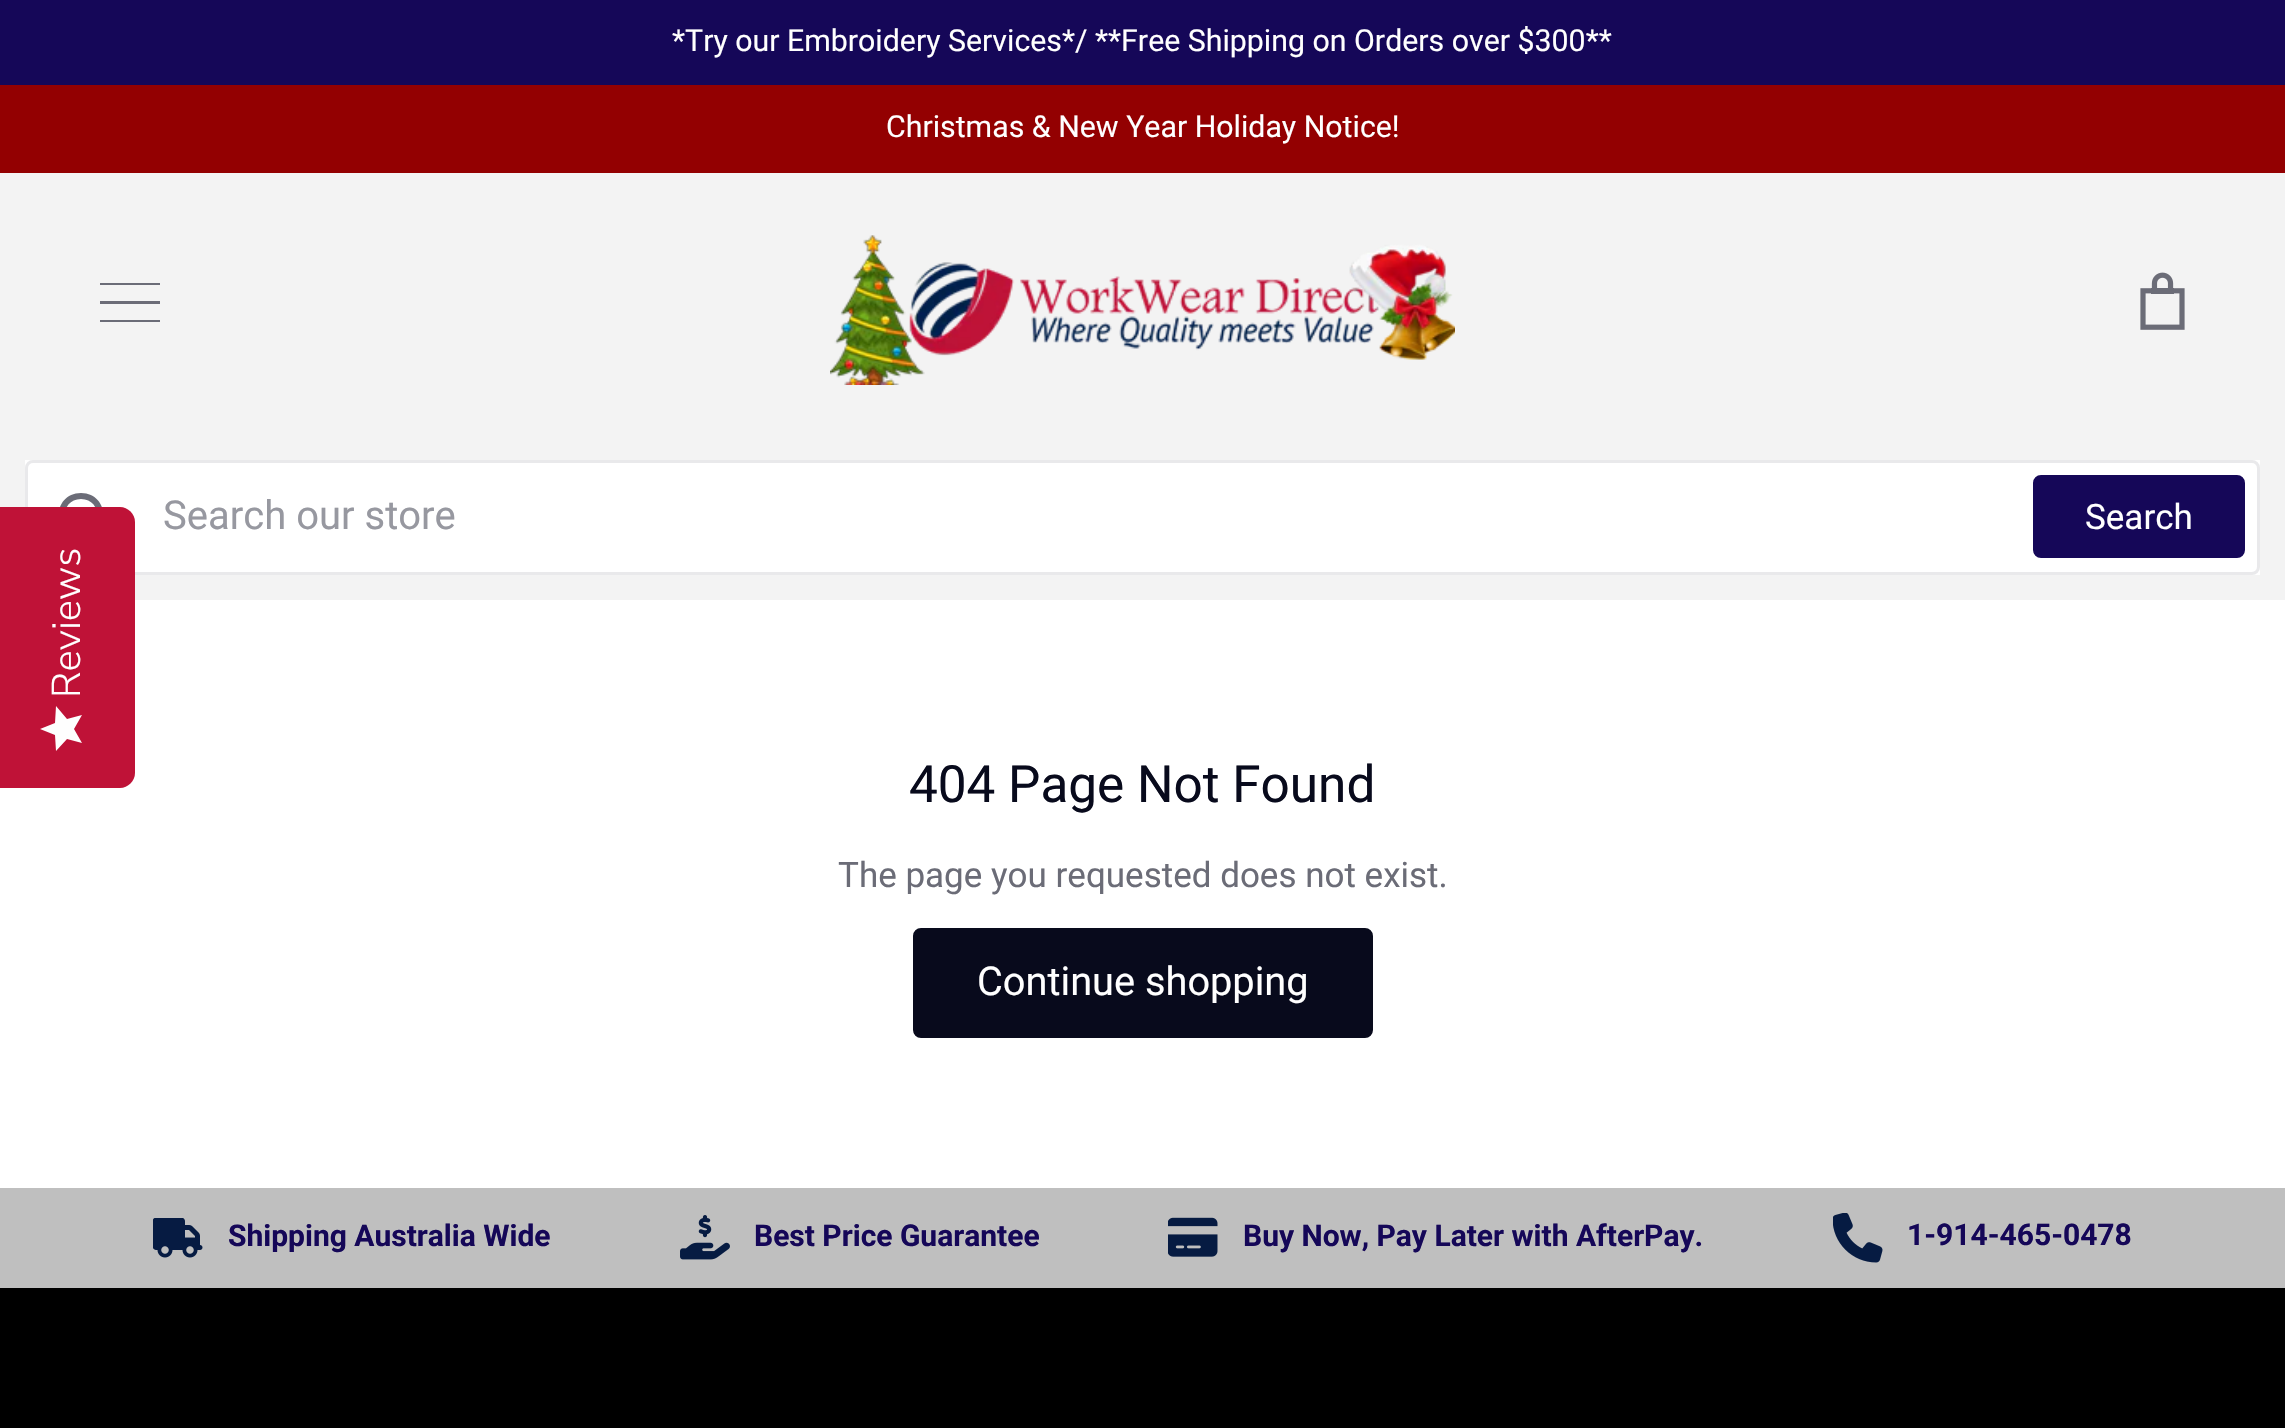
void draw(SkCanvas* c) {
SkPaint p;
p.setAntiAlias(true);
auto F=[&](const char* family, int weight, float size, bool italic = false){SkFontStyle style(weight, SkFontStyle::kNormal_Width,italic ? SkFontStyle::kItalic_Slant : SkFontStyle::kUpright_Slant);SkFont result(fontMgr->matchFamilyStyle(family, style), size);result.setSubpixel(true);return result;};
auto T=[&](const char* s, float x, float y, const SkFont& font){c->drawString(s, x, y, font, p);};
auto R=[&](float x, float y, float w, float h){c->drawRect(SkRect::MakeXYWH(x, y, w, h), p);};
auto I=[&](const char* path, float x, float y, float w, float h){auto image = SkImages::DeferredFromEncodedData(SkData::MakeFromFileName(path));c->drawImageRect(image, SkRect::MakeXYWH(x, y, w, h), SkSamplingOptions());};
auto P=[&](const char* data, bool evenOdd = false){SkPath result = *SkParsePath::FromSVGString(data);if (evenOdd) result.setFillType(SkPathFillType::kEvenOdd);return result;};
c->clear(0xffffffff);
p.setColor(0xff150758);
R(0,0,2285,85);
auto f1 = F("Roboto",400,30.3);
p.setColor(0xffffffff);
T("*Try our Embroidery Services*/ **Free Shipping on Orders over $300**",672,51,f1);
p.setColor(0xff930001);
R(0,85,2285,88);
p.setColor(0xffffffff);
T("Christmas & New Year Holiday Notice!",886,137,f1);
p.setColor(0xfff3f3f3);
R(0,173,2285,427);
p.setColor(0xff6b6c77);
R(100,283,60,2);
R(100,301,60,3);
R(100,320,60,2);
I("1.png",830,235,625,150);
I("2.png",2140,272,45,58);
p.setColor(0xffffffff);
R(25,460,2235,115);
p.setStroke(true);
p.setStrokeWidth(3);
p.setColor(0xffe9e9eb);
c->drawRoundRect(SkRect::MakeXYWH(26.5,461.5,2232,112),6.5,6.5,p);
p.setStroke(false);
p.setColor(0xff6b6c77);
c->drawPath(P("M81 539c-30 0-30-46 0-46c30 0 30 46 0 46zm0-6c22 0 22-34 0-34c-22 0-22 34 0 34z"),p);
auto f2 = F("Roboto",400,40);
p.setColor(0xff9798a0);
T("Search our store",163,529,f2);
p.setColor(0xff150758);
c->drawRoundRect(SkRect::MakeXYWH(2034.5,476.5,209,80),6.5,6.5,p);
p.setStroke(true);
c->drawRoundRect(SkRect::MakeXYWH(2034.5,476.5,209,80),6.5,6.5,p);
auto f3 = F("Roboto",400,35);
p.setStroke(false);
p.setColor(0xffffffff);
T("Search",2085,529,f3);
p.setColor(0xffbf1237);
c->drawPath(P("M0 788v-281h120c8 0 15 7 15 15v251c0 8-7 15-15 15z"),p);
auto f4 = F("Nunito Sans",300,40);
p.setColor(0xffffffff);
c->save();
c->rotate(-90,80,698);
T("Reviews",80,698,f4);
c->restore();
{
const SkColor colors[] = {0xfffefefe,0xffeaeaea};
const float stops[] = {1,1};
const SkPoint ends[] = {{40,751}, {40,706}};
p.setShader(SkGradientShader::MakeLinear(ends, colors, stops, 2, SkTileMode::kClamp));
p.setAlpha(255);
}
c->drawPath(P("M74 729l8-14l-15 4l-11-13l-1 17l-15 6l15 6l1 16l11-12l15 4z"),p);
auto f5 = F("Roboto",400,51.25);
p.setShader(nullptr);
p.setColor(0xff080a1c);
T("404 Page Not Found",909,802,f5);
p.setColor(0xff6b6c77);
T("The page you requested does not exist.",838,887,f3);
p.setColor(0xff080a1c);
c->drawRoundRect(SkRect::MakeXYWH(914.5,929.5,457,107),6.5,6.5,p);
p.setStroke(true);
c->drawRoundRect(SkRect::MakeXYWH(914.5,929.5,457,107),6.5,6.5,p);
auto f6 = F("Roboto",400,39.75);
p.setStroke(false);
p.setColor(0xffffffff);
T("Continue shopping",977,995,f6);
p.setColor(0xff000000);
R(0,1288,2285,140);
p.setColor(0xffbfbfbf);
R(0,1188,2285,100);
I("3.png",153,1218,50,40);
auto f7 = F("Roboto",700,30);
p.setColor(0xff150758);
T("Shipping Australia Wide",228,1246,f7);
I("4.png",680,1215,50,45);
T("Best Price Guarantee",754,1246,f7);
I("5.png",1168,1217,50,40);
T("Buy Now, Pay Later with AfterPay.",1243,1246,f7);
I("6.png",1833,1213,50,50);
T("1-914-465-0478",1907,1245,f7);
}
